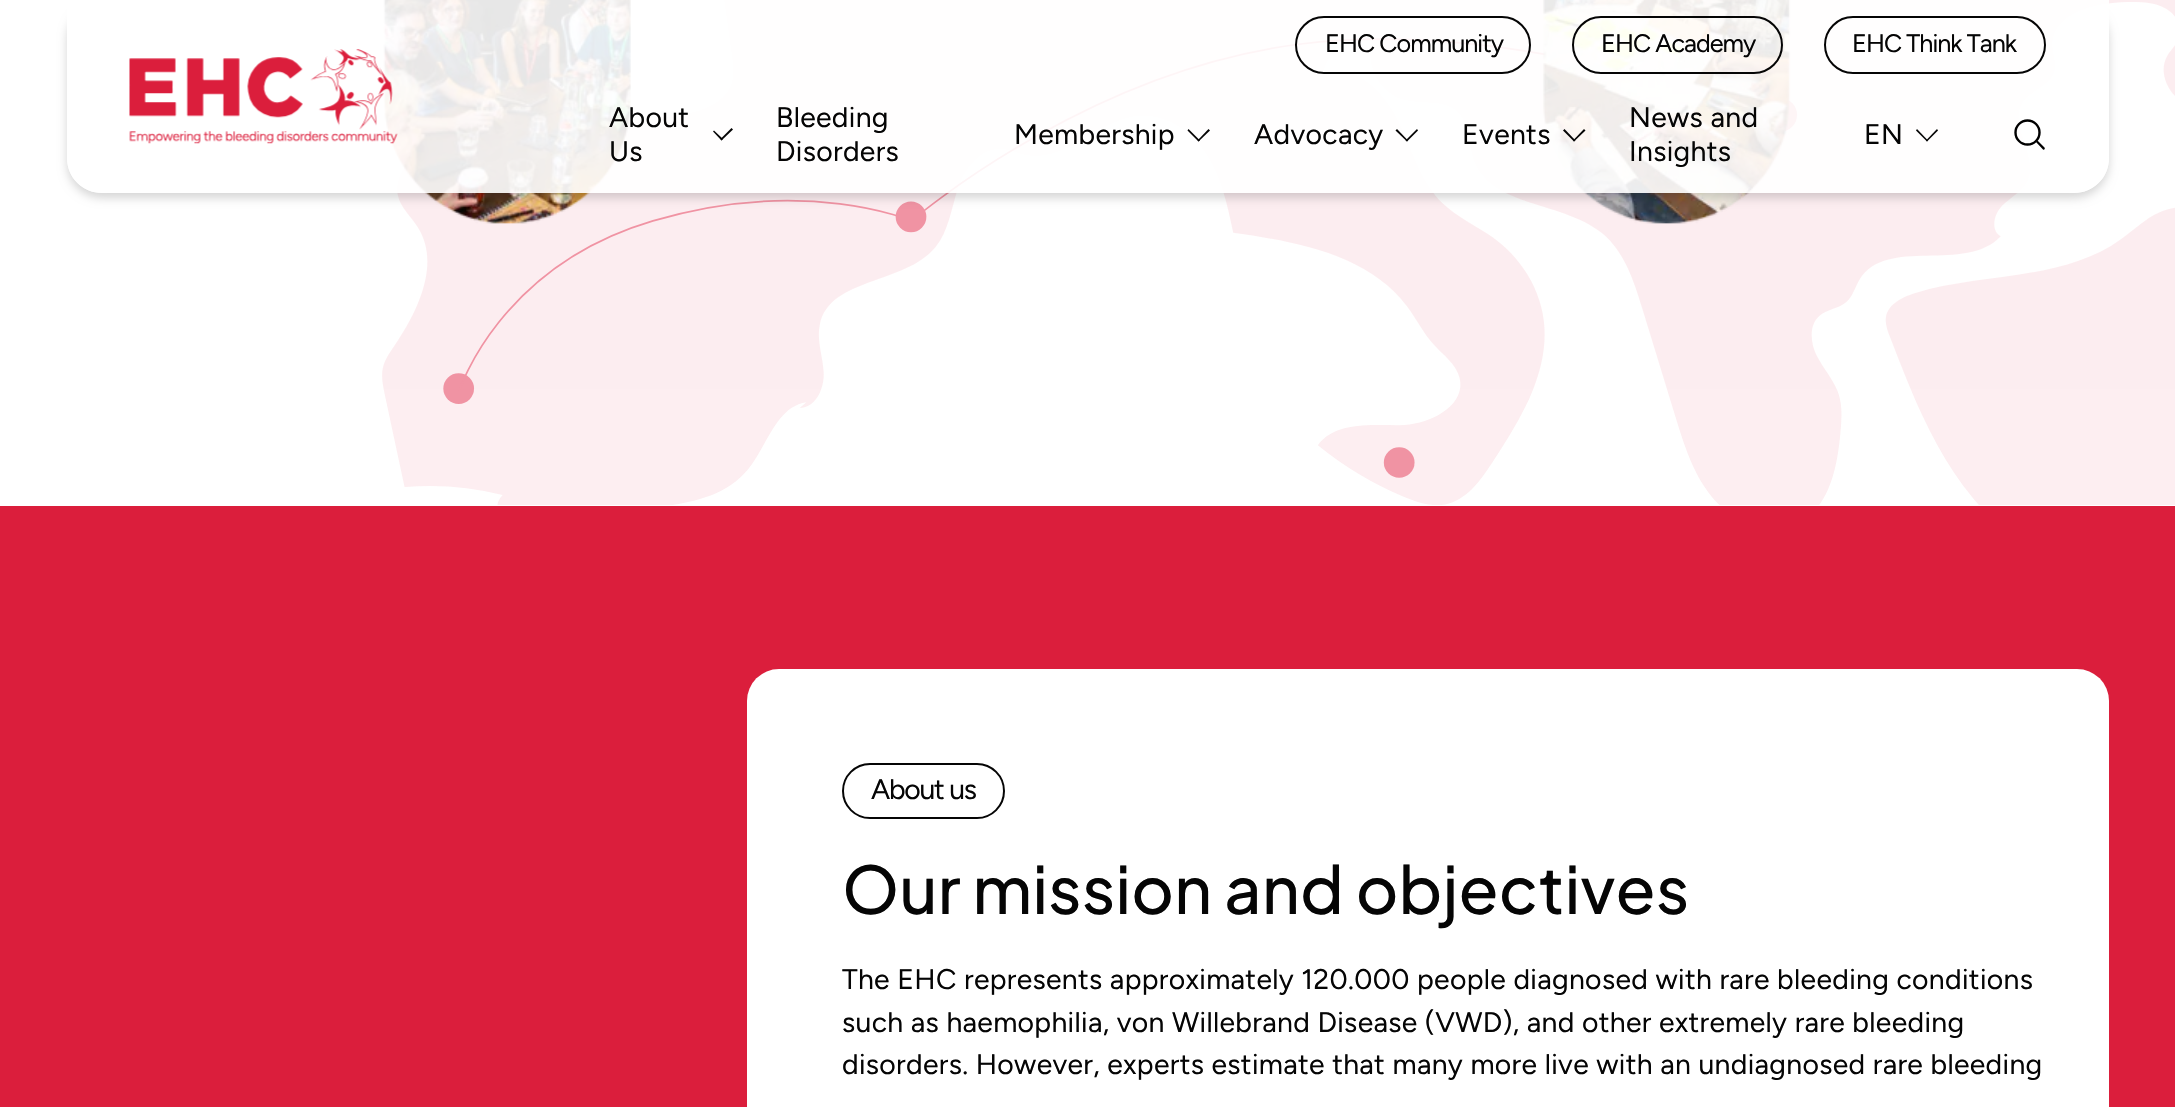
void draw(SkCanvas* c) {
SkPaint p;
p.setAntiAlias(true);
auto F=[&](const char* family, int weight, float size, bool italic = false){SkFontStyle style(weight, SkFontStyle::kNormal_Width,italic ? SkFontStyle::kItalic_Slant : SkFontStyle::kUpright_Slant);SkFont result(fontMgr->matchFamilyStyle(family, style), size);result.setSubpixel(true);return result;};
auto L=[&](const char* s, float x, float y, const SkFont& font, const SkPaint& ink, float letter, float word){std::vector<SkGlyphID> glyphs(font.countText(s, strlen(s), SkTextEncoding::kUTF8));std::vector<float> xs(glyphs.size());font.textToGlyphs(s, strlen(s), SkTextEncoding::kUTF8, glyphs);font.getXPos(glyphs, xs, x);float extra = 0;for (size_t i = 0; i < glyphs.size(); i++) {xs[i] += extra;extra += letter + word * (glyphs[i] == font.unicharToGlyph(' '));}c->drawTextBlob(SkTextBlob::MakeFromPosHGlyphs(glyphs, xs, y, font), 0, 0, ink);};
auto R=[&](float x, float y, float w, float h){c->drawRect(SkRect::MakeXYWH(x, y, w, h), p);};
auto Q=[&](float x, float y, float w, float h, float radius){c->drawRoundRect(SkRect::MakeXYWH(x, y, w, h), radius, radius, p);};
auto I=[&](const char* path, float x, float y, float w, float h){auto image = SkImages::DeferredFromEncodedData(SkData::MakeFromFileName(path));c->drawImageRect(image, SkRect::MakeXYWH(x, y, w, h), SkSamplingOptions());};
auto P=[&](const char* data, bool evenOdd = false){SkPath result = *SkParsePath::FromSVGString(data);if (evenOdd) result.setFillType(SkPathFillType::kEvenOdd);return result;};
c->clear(0xffffffff);
I("2.png",382,0,1793,505);
I("3.png",383,0,1408,224);
c->save();
c->clipPath(P("M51 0h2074v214h-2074zm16 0h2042v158c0 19.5-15.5 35-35 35h-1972c-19.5 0-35-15.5-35-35z",true),true);
p.setColor(0x29000000);
p.setMaskFilter(SkMaskFilter::MakeBlur(kNormal_SkBlurStyle, 5));
c->drawRoundRect(SkRect::MakeXYWH(67,5,2042,193),35,35,p);
p.setMaskFilter(nullptr);
c->restore();
p.setColor(0xe6ffffff);
c->drawPath(P("M67 0h2042v158c0 19.5-15.5 35-35 35h-1972c-19.5 0-35-15.5-35-35z"),p);
I("1.png",129,49,269,95);
p.setStroke(true);
p.setStrokeWidth(2);
p.setColor(0xff050505);
c->drawRoundRect(SkRect::MakeXYWH(1296,17,234,56),28,28,p);
auto f1 = F("Figtree",400,25.25);
p.setStroke(false);
L("EHC Community",1325,52,f1,p,-1,0);
p.setStroke(true);
c->drawRoundRect(SkRect::MakeXYWH(1573,17,209,56),28,28,p);
p.setStroke(false);
L("EHC Academy",1601,52,f1,p,-1,0);
p.setStroke(true);
c->drawRoundRect(SkRect::MakeXYWH(1825,17,220,56),28,28,p);
p.setStroke(false);
L("EHC Think Tank",1852,52,f1,p,-1,0);
auto f2 = F("Figtree",400,28.35);
L("About",609,127,f2,p,.32,0);
c->drawPath(P("M731.5 128l1.5 1.5l-11.5 11l-1-1.5z"),p);
c->drawPath(P("M714 130.5l9 8.5l-1.5 1.5l-8.5-9z"),p);
L("Us",609,161,f2,p,.32,0);
L("Bleeding",776,127,f2,p,.32,0);
L("Disorders",776,161,f2,p,.32,0);
L("Membership",1014,144,f2,p,.32,0);
c->drawPath(P("M1208.5 129l1.5 1.5l-11.5 11l-1-1z"),p);
c->drawPath(P("M1188.5 129l11.5 11.5l-1.5 1l-11-11z"),p);
L("Advocacy",1254,144,f2,p,.32,0);
c->drawPath(P("M1417 129l1 1.5l-11 11l-1.5-1z"),p);
c->drawPath(P("M1397 129l11 11.5l-1 1l-11.5-11z"),p);
L("Events",1462,144,f2,p,.32,0);
c->drawPath(P("M1584 129l1.5 1.5l-11.5 11l-1-1z"),p);
c->drawPath(P("M1564.5 129l11 11.5l-1.5 1l-11-11z"),p);
L("News and",1629,127,f2,p,.32,0);
L("Insights",1629,161,f2,p,.32,0);
L("EN",1864,144,f2,p,.32,0);
c->drawPath(P("M1937 129l1 1.5l-11 11l-1-1z"),p);
c->drawPath(P("M1917 129l11 11.5l-1 1l-11-11z"),p);
p.setStroke(true);
p.setStrokeWidth(2.4);
p.setColor(0xff000000);
c->drawCircle(2027.5,132.5,12,p);
p.setStroke(false);
c->drawPath(P("M2043 149.5c1 1 2.5-.5 1.5-2zm-7-7.5l7 7.5l1.5-2l-7-7z"),p);
p.setColor(0xffdb1e3c);
R(0,506,2175,601);
p.setColor(0xffffffff);
Q(747,669,1362,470,32);
p.setStroke(true);
p.setStrokeWidth(2);
p.setColor(0xff050505);
c->drawRoundRect(SkRect::MakeXYWH(843,764,161,54),27,27,p);
p.setStroke(false);
L("About us",871,799,f2,p,-1.25,0);
auto f3 = F("Plus Jakarta Sans",500,65.25);
L("Our mission and objectives",842,914,f3,p,.32,0);
L("The EHC represents approximately 120.000 people diagnosed with rare bleeding conditions",842,989,f2,p,.32,0);
L("such as haemophilia, von Willebrand Disease (VWD), and other extremely rare bleeding",842,1032,f2,p,.32,0);
L("disorders. However, experts estimate that many more live with an undiagnosed rare bleeding",842,1074,f2,p,.32,0);
}
